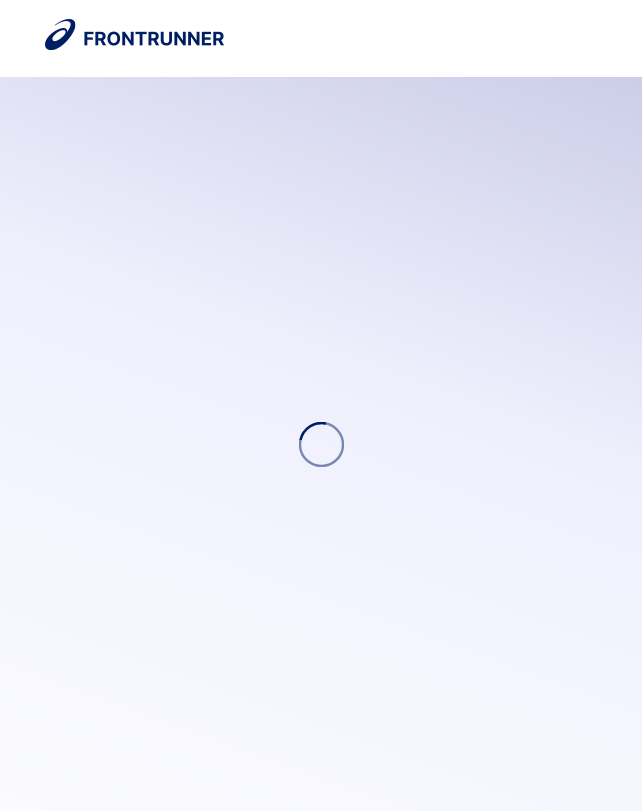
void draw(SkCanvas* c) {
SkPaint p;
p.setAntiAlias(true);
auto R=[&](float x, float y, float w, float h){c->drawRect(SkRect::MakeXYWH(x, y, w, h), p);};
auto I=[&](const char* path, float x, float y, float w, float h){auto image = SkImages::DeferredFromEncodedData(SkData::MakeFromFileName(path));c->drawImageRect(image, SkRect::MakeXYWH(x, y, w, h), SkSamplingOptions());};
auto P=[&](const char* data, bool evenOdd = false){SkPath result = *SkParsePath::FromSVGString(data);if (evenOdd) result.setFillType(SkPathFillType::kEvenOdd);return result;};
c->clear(0xffffffff);
I("1.png",45,19,179,31);
{
const SkColor colors[] = {0xffb6b8dc,0xffeff0fd,0xffffffff};
const float stops[] = {0,.45,1};
const SkPoint ends[] = {{554,-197}, {96,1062}};
p.setShader(SkGradientShader::MakeLinear(ends, colors, stops, 3, SkTileMode::kClamp));
p.setAlpha(255);
}
R(0,77,642,734);
c->save();
c->clipRect(SkRect::MakeXYWH(299,422,45,45));
p.setStroke(true);
p.setStrokeWidth(2.4);
p.setShader(nullptr);
p.setColor(0xff7888b0);
c->drawCircle(321.5,444.5,21.5,p);
p.setColor(0xff001e63);
c->drawPath(P("M326 423.5c-11.5-2.5-23 5-25.5 16.5"),p);
c->restore();
}
